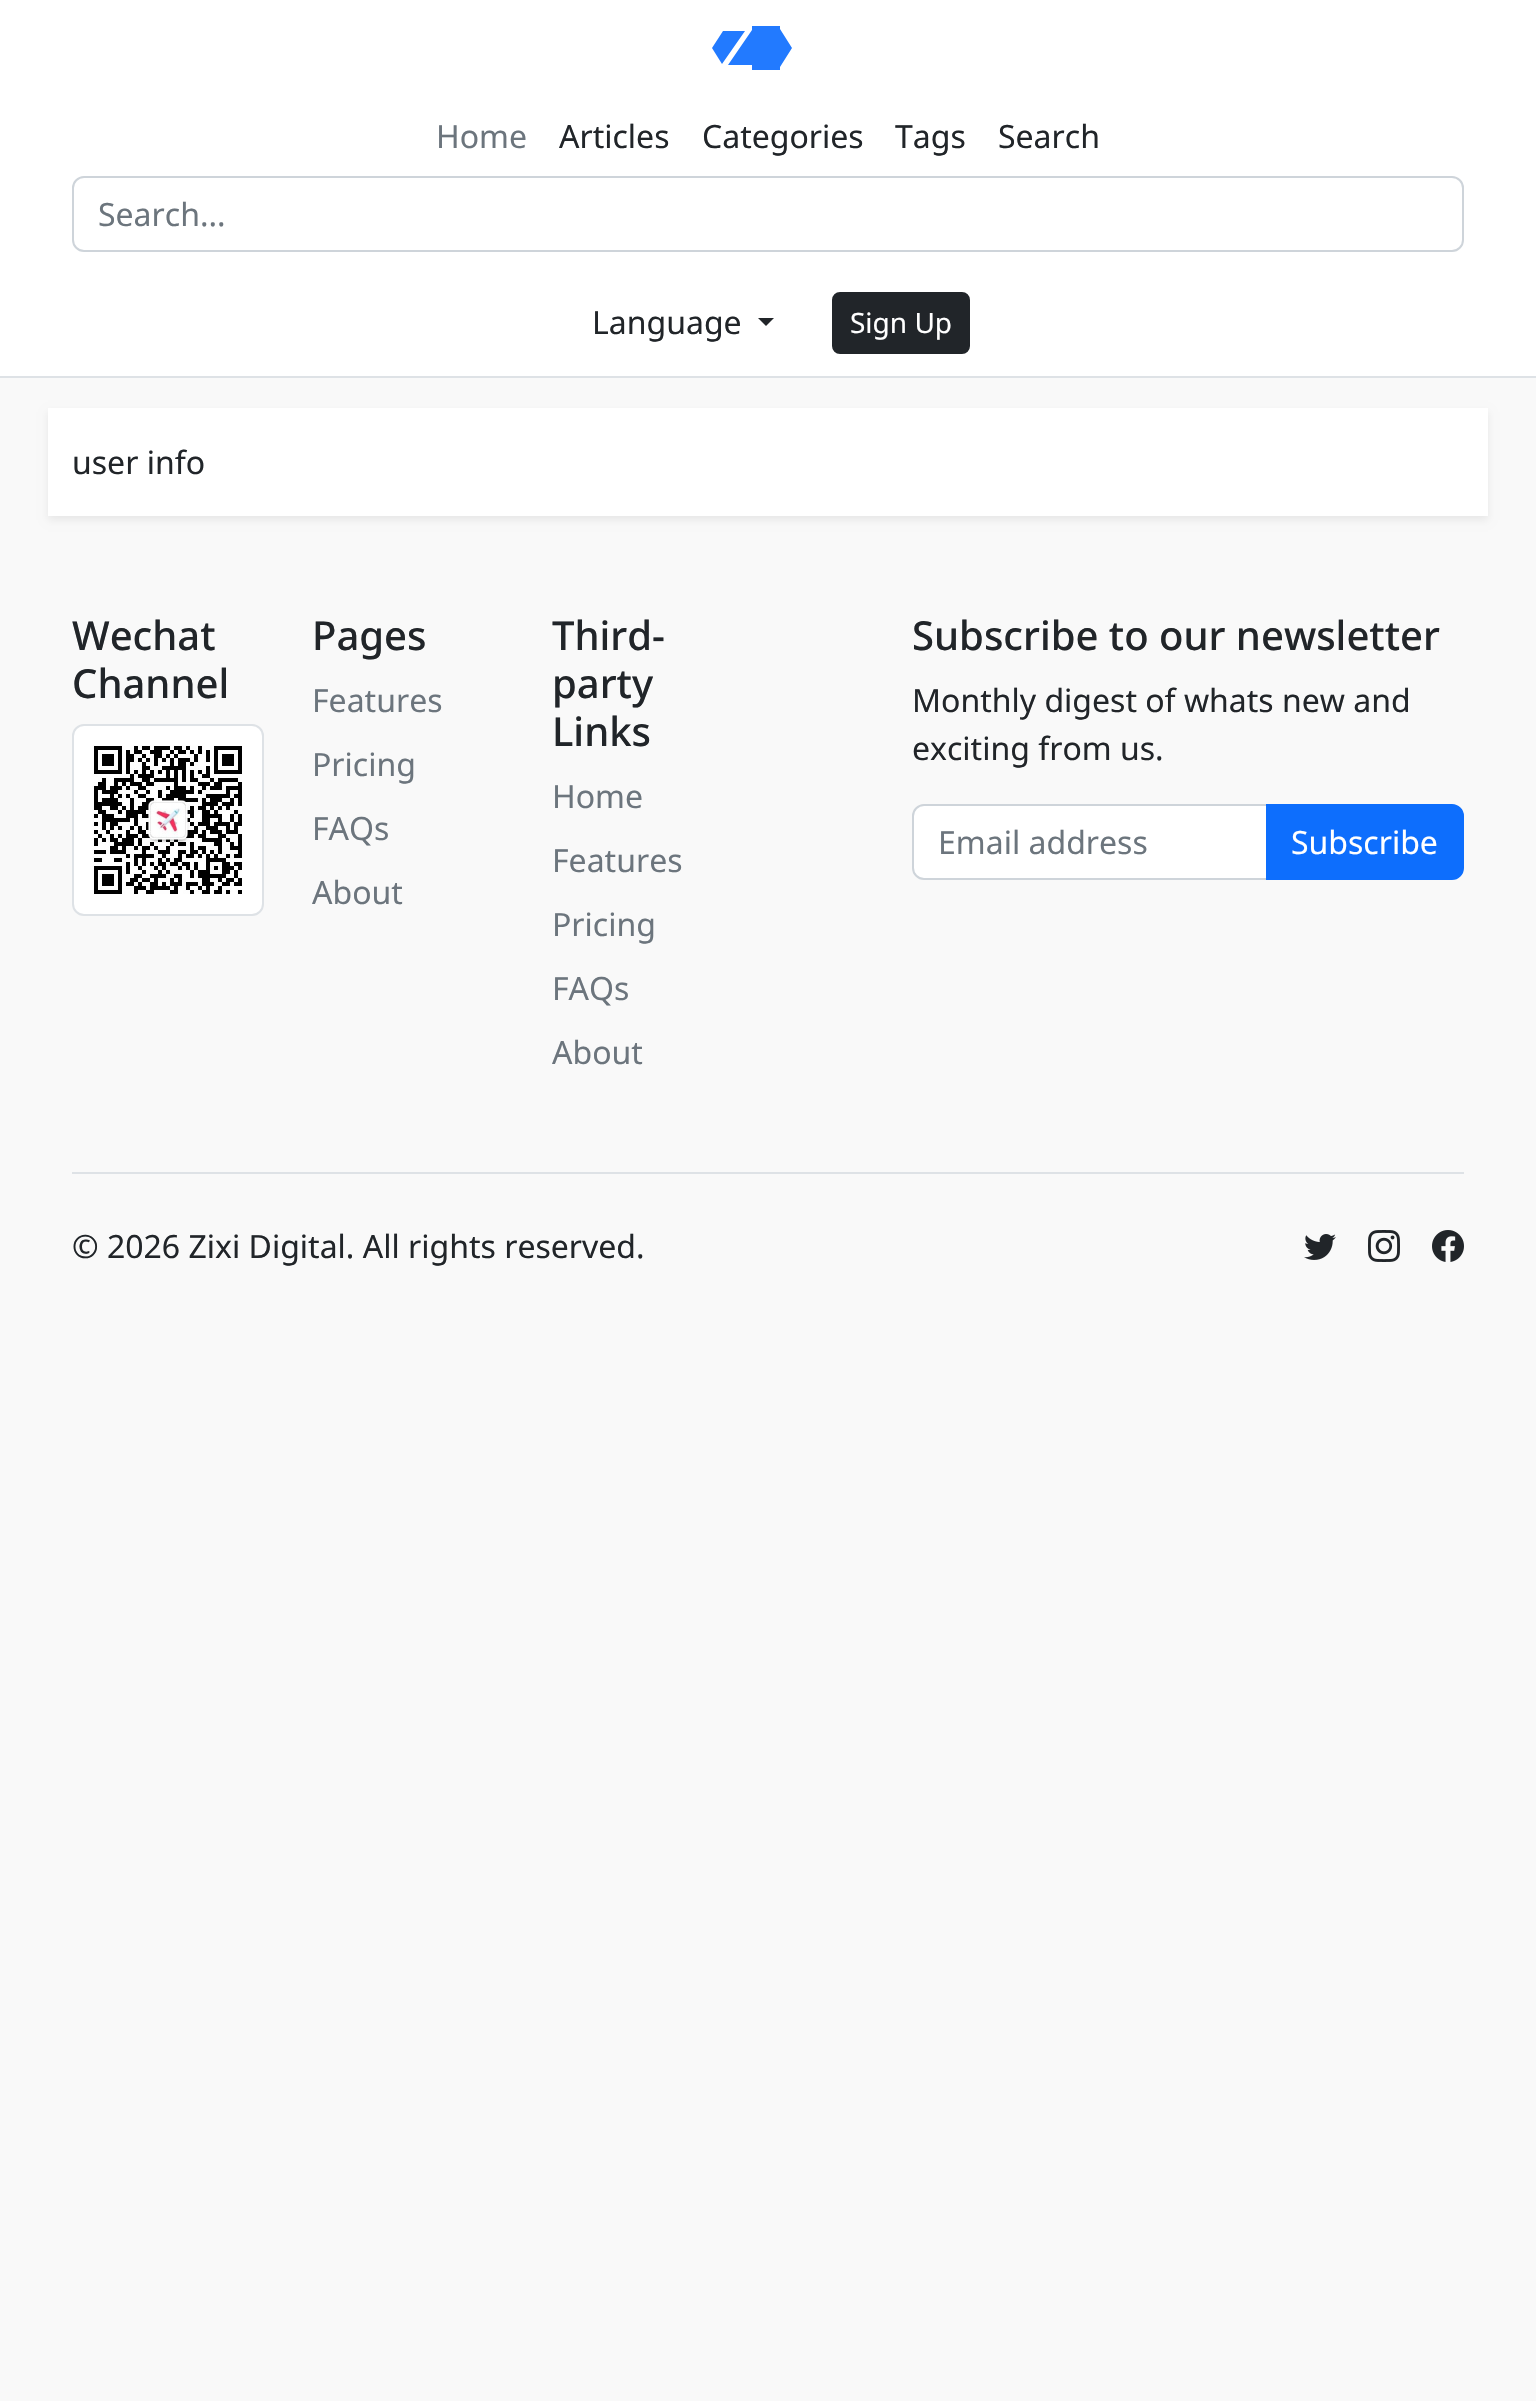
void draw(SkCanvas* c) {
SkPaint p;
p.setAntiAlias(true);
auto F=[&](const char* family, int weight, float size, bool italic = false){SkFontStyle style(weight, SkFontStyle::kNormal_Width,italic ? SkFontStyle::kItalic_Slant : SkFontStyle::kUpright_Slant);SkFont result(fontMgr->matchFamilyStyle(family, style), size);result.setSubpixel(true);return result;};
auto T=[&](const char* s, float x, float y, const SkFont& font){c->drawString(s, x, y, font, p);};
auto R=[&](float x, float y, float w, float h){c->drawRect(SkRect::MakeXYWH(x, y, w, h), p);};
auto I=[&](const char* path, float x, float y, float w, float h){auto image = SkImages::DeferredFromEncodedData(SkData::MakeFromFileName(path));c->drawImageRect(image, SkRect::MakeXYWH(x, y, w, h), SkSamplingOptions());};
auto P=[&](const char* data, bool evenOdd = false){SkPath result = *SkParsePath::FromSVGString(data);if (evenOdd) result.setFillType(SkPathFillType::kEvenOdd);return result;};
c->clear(0xfff9f9f9);
p.setColor(0xffffffff);
R(0,0,1536,376);
p.setColor(0xffdee2e6);
R(0,376,1536,2);
p.setColor(0xff227aff);
c->drawPath(P("M712 48l10 16l23-33h-22zm40-22v4l-24 35h24v5h28v-3l12-19l-12-19v-3z",true),p);
auto f1 = F("Noto Sans",400,32);
p.setColor(0xff6c757d);
T("Home",436,148,f1);
p.setColor(0xff212529);
T("Articles",559,148,f1);
T("Categories",702,148,f1);
T("Tags",895,148,f1);
T("Search",998,148,f1);
p.setStroke(true);
p.setStrokeWidth(2);
p.setColor(0xffced4da);
c->drawRoundRect(SkRect::MakeXYWH(73,177,1390,74),11,11,p);
p.setStroke(false);
p.setColor(0xff6c757d);
T("Search...",98,226,f1);
p.setColor(0xff212529);
T("Language",592,334,f1);
c->drawPath(P("M758 318h16l-8 8z"),p);
c->drawRoundRect(SkRect::MakeXYWH(833,293,136,60),7,7,p);
p.setStroke(true);
c->drawRoundRect(SkRect::MakeXYWH(833,293,136,60),7,7,p);
auto f2 = F("Noto Sans",400,28);
p.setStroke(false);
p.setColor(0xffffffff);
T("Sign Up",850,333,f2);
p.setColor(0x12000000);
p.setMaskFilter(SkMaskFilter::MakeBlur(kNormal_SkBlurStyle, 4));
c->drawRect(SkRect::MakeXYWH(48,412,1440,108),p);
p.setMaskFilter(nullptr);
p.setColor(0xffffffff);
R(48,408,1440,108);
p.setColor(0xff212529);
T("user info",72,474,f1);
auto f3 = F("Noto Sans",500,40);
T("Wechat",72,650,f3);
T("Channel",72,698,f3);
p.setColor(0xffffffff);
c->drawRoundRect(SkRect::MakeXYWH(73,725,190,190),11,11,p);
p.setStroke(true);
p.setColor(0xffdee2e6);
c->drawRoundRect(SkRect::MakeXYWH(73,725,190,190),11,11,p);
I("1.png",92,745,150,149);
p.setStroke(false);
p.setColor(0xff212529);
T("Pages",312,650,f3);
p.setColor(0xff6c757d);
T("Features",312,712,f1);
T("Pricing",312,776,f1);
T("FAQs",312,840,f1);
T("About",312,904,f1);
p.setColor(0xff212529);
T("Third-",552,650,f3);
T("party",552,698,f3);
T("Links",552,746,f3);
p.setColor(0xff6c757d);
T("Home",552,808,f1);
T("Features",552,872,f1);
T("Pricing",552,936,f1);
T("FAQs",552,1000,f1);
T("About",552,1064,f1);
p.setColor(0xff212529);
T("Subscribe to our newsletter",912,650,f3);
T("Monthly digest of whats new and",912,712,f1);
T("exciting from us.",912,760,f1);
p.setColor(0xffffffff);
c->drawPath(P("M924 805h343v74h-343c-6 0-11-5-11-11v-52c0-6 5-11 11-11z"),p);
p.setStroke(true);
p.setColor(0xffced4da);
c->drawPath(P("M924 805h343v74h-343c-6 0-11-5-11-11v-52c0-6 5-11 11-11z"),p);
p.setStroke(false);
p.setColor(0xff6c757d);
T("Email address",938,854,f1);
p.setColor(0xff0d6efd);
c->drawPath(P("M1267 805h185c6 0 11 5 11 11v52c0 6-5 11-11 11h-185z"),p);
p.setStroke(true);
c->drawPath(P("M1267 805h185c6 0 11 5 11 11v52c0 6-5 11-11 11h-185z"),p);
p.setStroke(false);
p.setColor(0xffffffff);
T("Subscribe",1291,854,f1);
p.setColor(0xffdee2e6);
R(72,1172,1392,2);
p.setColor(0xff212529);
T("© 2026 Zixi Digital. All rights reserved.",72,1258,f1);
I("2.png",1304,1234,32,26);
I("3.png",1368,1230,32,32);
I("4.png",1432,1230,32,32);
}
